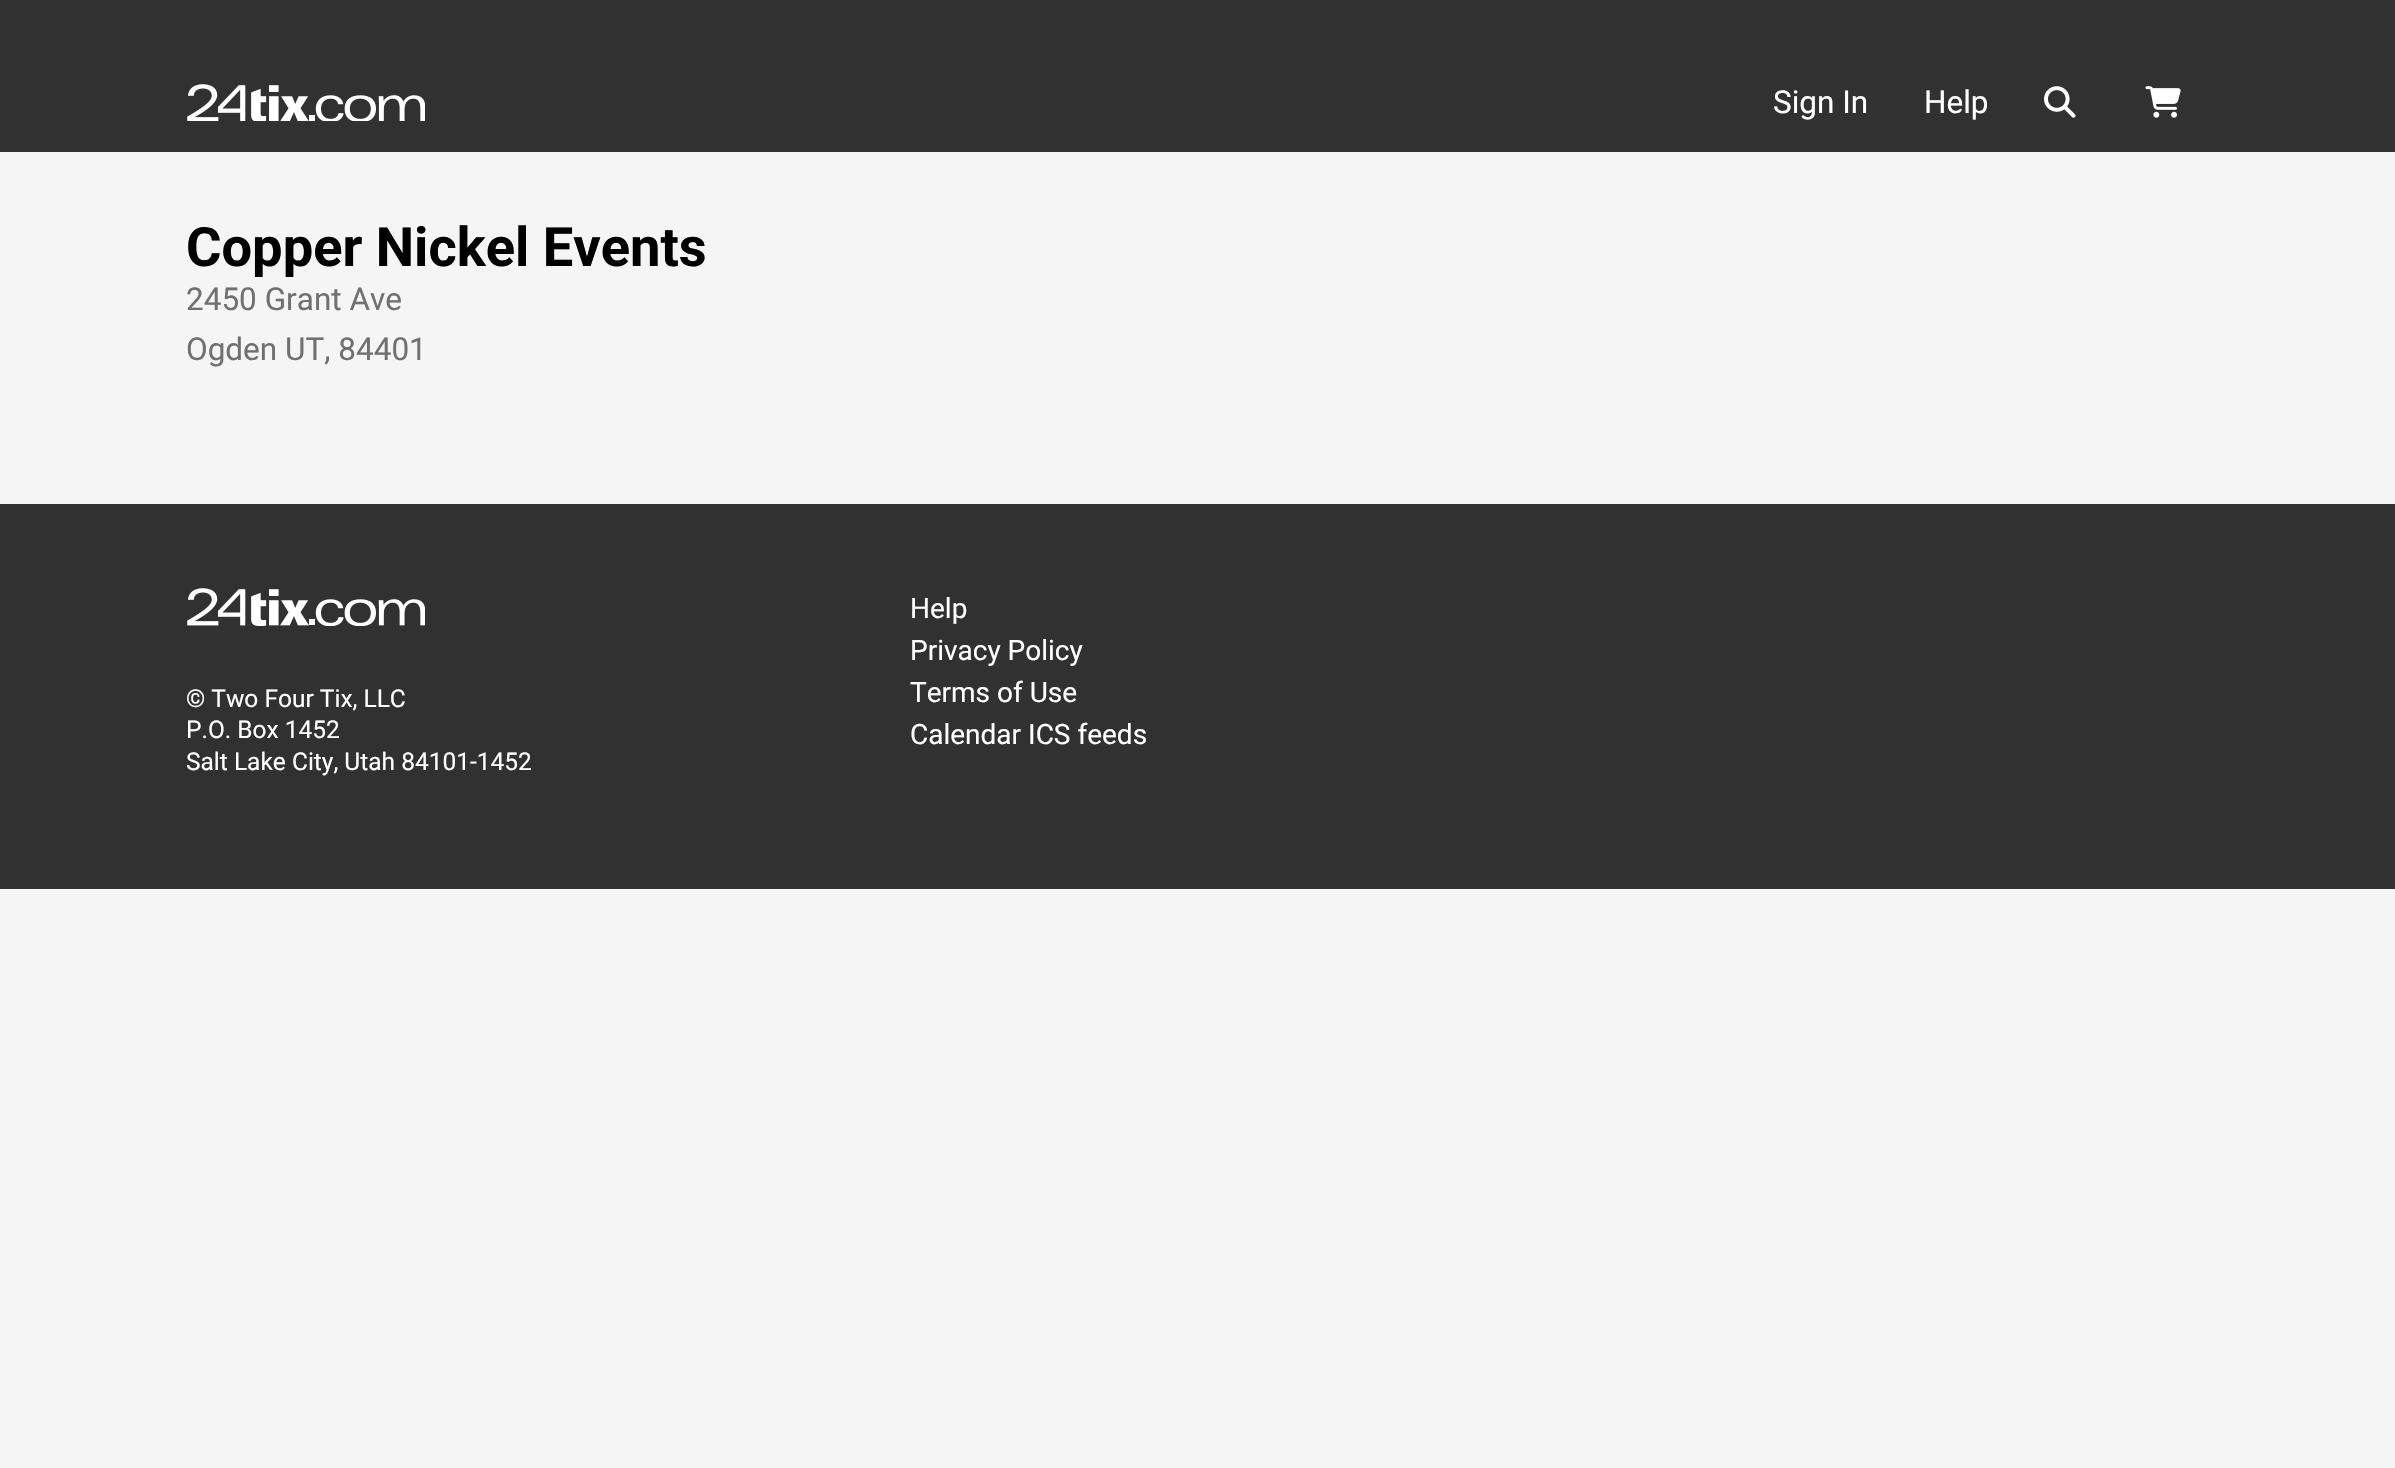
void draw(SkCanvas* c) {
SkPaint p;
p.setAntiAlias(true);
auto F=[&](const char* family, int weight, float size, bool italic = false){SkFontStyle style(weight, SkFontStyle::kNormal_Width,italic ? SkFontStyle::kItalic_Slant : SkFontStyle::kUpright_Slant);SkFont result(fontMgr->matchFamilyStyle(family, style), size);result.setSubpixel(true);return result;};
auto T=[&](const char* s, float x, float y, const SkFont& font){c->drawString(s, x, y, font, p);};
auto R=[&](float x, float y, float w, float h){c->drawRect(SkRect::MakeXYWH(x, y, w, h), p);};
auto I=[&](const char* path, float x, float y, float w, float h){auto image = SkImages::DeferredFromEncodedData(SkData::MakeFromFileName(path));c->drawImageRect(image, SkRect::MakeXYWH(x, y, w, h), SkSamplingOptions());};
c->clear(0xfff5f5f5);
p.setColor(0xff313131);
R(0,0,2395,152);
I("1.png",187,84,238,37);
auto f1 = F("Roboto",400,31.5);
p.setColor(0xffffffff);
T("Sign In",1773,113,f1);
T("Help",1924,113,f1);
I("2.png",2044,86,32,32);
I("3.png",2145,86,36,32);
auto f2 = F("Roboto",700,54.25);
p.setColor(0xff000000);
T("Copper Nickel Events",186,266,f2);
p.setColor(0xff707070);
T("2450 Grant Ave",186,310,f1);
T("Ogden UT, 84401",186,360,f1);
p.setColor(0xff313131);
R(0,504,2395,385);
I("4.png",187,588,238,38);
auto f3 = F("Roboto",400,24.5);
p.setColor(0xffffffff);
T("© Two Four Tix, LLC",186,707,f3);
T("P.O. Box 1452",186,738,f3);
T("Salt Lake City, Utah 84101-1452",186,770,f3);
auto f4 = F("Roboto",400,28);
T("Help",910,618,f4);
T("Privacy Policy",910,660,f4);
T("Terms of Use",910,702,f4);
T("Calendar ICS feeds",910,744,f4);
}
